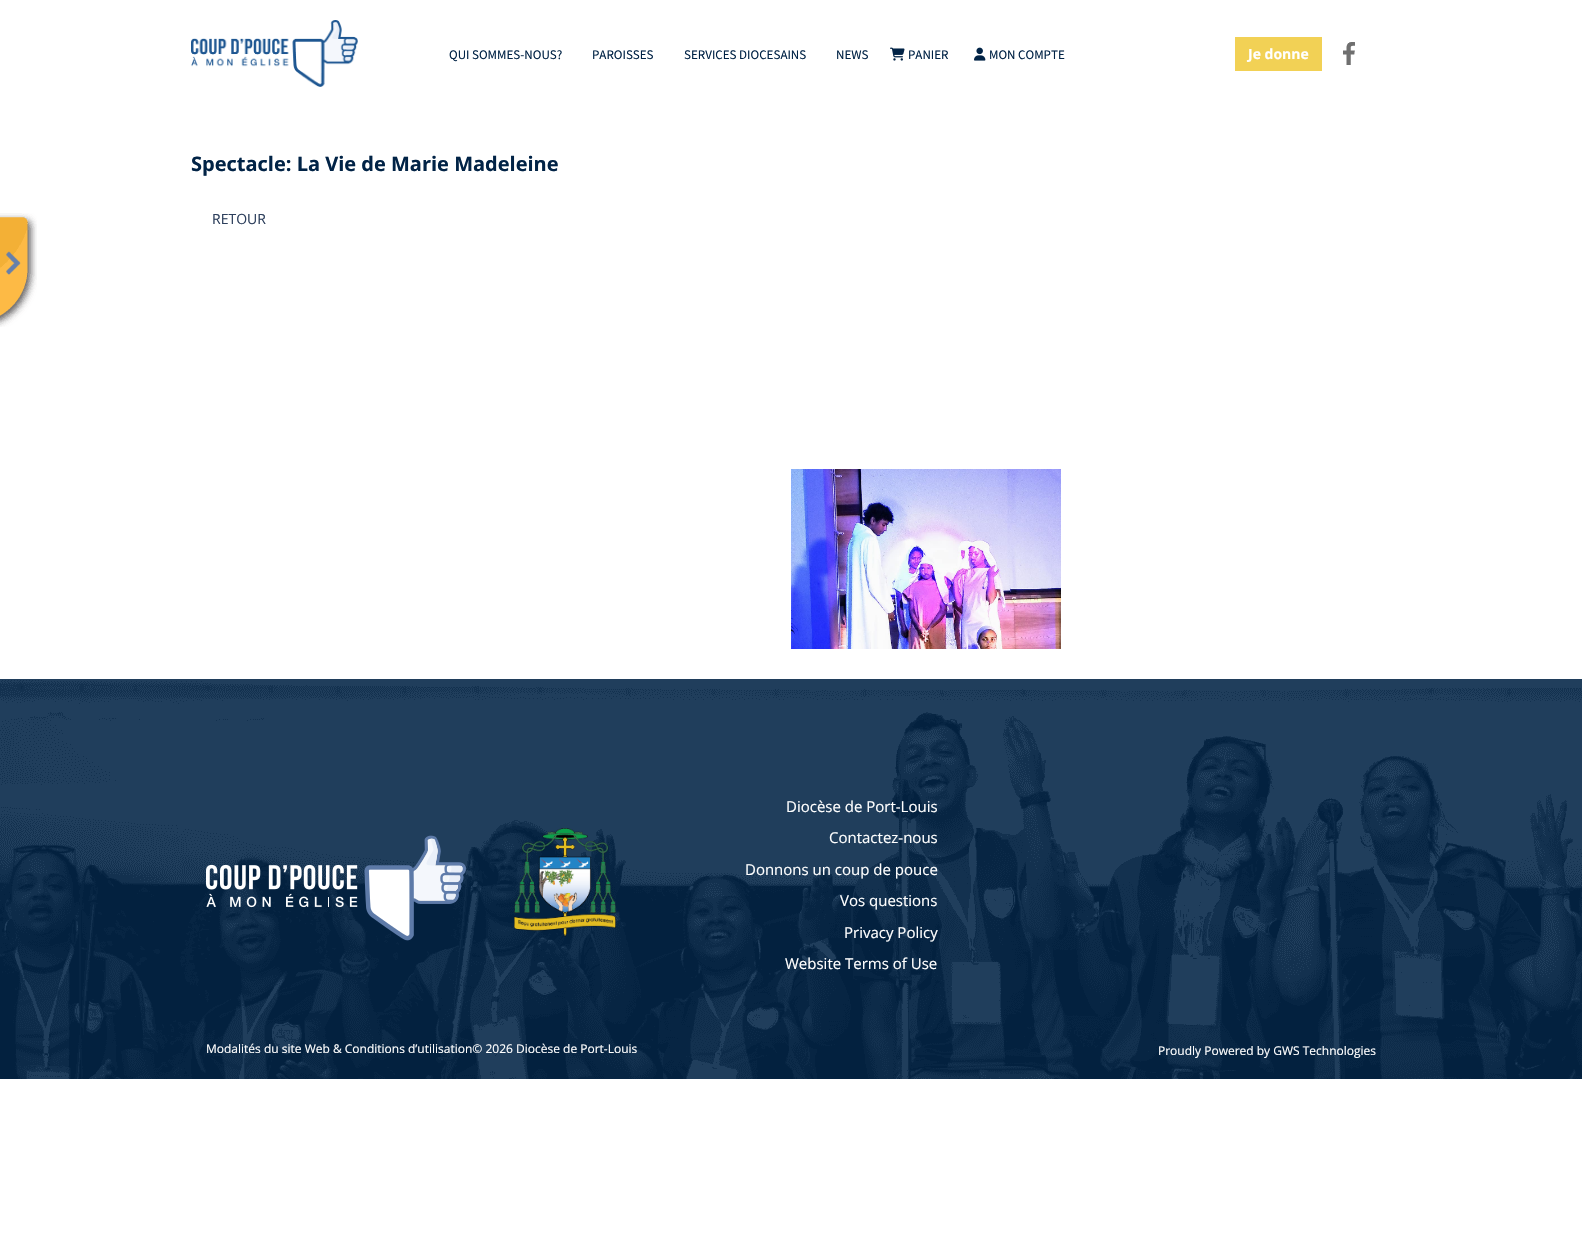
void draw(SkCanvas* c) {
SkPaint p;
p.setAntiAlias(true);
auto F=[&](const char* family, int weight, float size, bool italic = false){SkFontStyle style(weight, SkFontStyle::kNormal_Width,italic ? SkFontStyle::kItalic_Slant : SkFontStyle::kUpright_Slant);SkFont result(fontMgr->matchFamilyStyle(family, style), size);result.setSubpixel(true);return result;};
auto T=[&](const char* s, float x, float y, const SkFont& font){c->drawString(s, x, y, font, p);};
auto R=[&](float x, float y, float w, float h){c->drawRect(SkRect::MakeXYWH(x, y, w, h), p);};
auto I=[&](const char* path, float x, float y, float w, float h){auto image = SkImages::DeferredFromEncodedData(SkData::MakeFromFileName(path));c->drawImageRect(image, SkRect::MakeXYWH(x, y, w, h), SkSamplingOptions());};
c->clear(0xffffffff);
I("1.png",0,213,37,114);
I("2.png",6,251,15,24);
I("3.png",191,20,167,67);
auto f1 = F("Source Sans Pro",400,13);
p.setColor(0xff012346);
T("QUI SOMMES-NOUS?",449,59,f1);
T("PAROISSES",592,59,f1);
T("SERVICES DIOCESAINS",684,59,f1);
T("NEWS",836,59,f1);
I("4.png",890,47,15,14);
T("PANIER",908,59,f1);
I("5.png",974,47,12,14);
T("MON COMPTE",989,59,f1);
p.setColor(0xfff2d155);
R(1235,37,87,34);
auto f2 = F("Open Sans",700,14);
p.setColor(0xffffffff);
T("Je donne",1248,59,f2);
I("6.png",1343,42,12,23);
auto f3 = F("Open Sans",700,20);
p.setColor(0xff012346);
T("Spectacle: La Vie de Marie Madeleine",191,171,f3);
auto f4 = F("Open Sans",400,14);
p.setColor(0xff2d3f5c);
T("RETOUR",212,224,f4);
I("7.png",791,469,270,180);
p.setColor(0xff012346);
R(0,679,1582,400);
I("8.png",0,679,1582,400);
I("9.png",206,835,260,106);
I("10.png",514,828,102,109);
auto f5 = F("Open Sans",400,15);
p.setColor(0xffffffff);
T("Diocèse de Port-Louis",786,812,f5);
T("Contactez-nous",829,843,f5);
T("Donnons un coup de pouce",745,875,f5);
T("Vos questions",840,906,f5);
T("Privacy Policy",844,938,f5);
T("Website Terms of Use",785,969,f5);
auto f6 = F("Open Sans",400,12);
T("Modalités du site Web & Conditions d’utilisation© 2026 Diocèse de Port-Louis",206,1053,f6);
T("Proudly Powered by GWS Technologies",1158,1055,f6);
}
